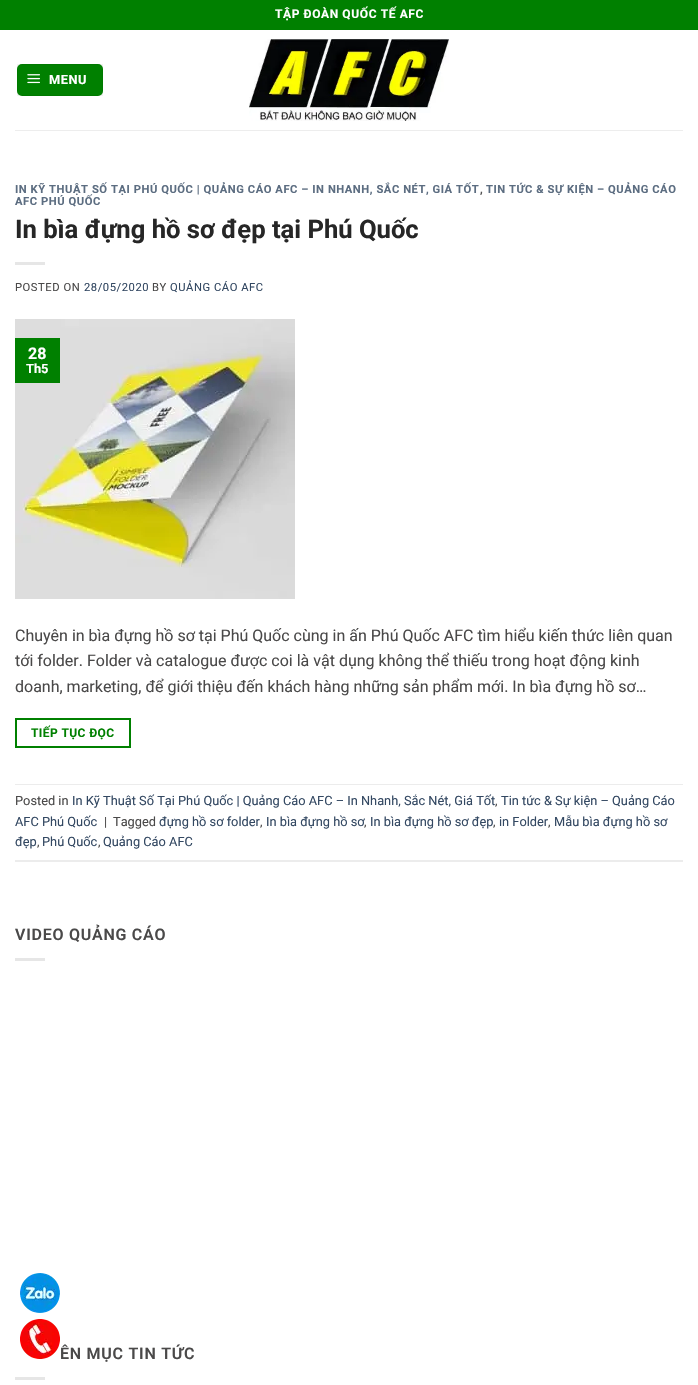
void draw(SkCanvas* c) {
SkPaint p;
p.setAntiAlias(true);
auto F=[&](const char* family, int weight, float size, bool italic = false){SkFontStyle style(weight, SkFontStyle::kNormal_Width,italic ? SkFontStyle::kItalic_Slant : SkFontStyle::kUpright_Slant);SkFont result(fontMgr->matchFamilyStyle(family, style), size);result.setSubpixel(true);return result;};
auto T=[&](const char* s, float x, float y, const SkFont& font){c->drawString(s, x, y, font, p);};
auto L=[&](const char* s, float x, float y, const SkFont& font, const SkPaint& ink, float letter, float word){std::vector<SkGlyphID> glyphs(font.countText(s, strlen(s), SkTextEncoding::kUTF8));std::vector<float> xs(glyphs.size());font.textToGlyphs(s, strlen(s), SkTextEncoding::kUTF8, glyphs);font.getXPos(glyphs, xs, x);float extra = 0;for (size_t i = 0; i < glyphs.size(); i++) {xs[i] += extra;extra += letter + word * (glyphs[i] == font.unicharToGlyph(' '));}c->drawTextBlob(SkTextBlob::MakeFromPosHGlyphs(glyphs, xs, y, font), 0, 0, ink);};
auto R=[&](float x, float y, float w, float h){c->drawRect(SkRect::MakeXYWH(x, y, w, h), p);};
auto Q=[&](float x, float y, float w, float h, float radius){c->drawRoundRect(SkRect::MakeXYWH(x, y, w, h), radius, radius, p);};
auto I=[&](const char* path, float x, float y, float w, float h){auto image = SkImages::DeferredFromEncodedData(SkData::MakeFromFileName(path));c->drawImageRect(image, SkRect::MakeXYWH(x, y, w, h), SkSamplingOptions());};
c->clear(0xffffffff);
p.setColor(0xff008000);
R(0,0,698,30);
auto f1 = F("Roboto",700,12);
p.setColor(0xffffffff);
L("TẬP ĐOÀN QUỐC TẾ AFC",275,18,f1,p,.6,0);
p.setColor(0xff008000);
Q(17,64,86,32,5);
p.setStroke(true);
p.setStrokeWidth(1);
p.setColor(0x0d000000);
c->drawRect(SkRect::MakeXYWH(17.5,64.5,85,31),p);
I("1.png",27,74,13,10);
auto f2 = F("Roboto",700,12.8);
p.setStroke(false);
p.setColor(0xffffffff);
L("MENU",49,84,f2,p,.5,0);
I("2.png",249,39,200,82);
p.setColor(0xffededed);
R(15,130,668,1);
auto f3 = F("Roboto",700,11.2);
p.setColor(0xff5c6d81);
L("IN KỸ THUẬT SỐ TẠI PHÚ QUỐC | QUẢNG CÁO AFC – IN NHANH, SẮC NÉT, GIÁ TỐT",15,193,f3,p,.55,0);
p.setColor(0xff515151);
L(",",480,193,f3,p,.55,0);
p.setColor(0xff5c6d81);
L("TIN TỨC & SỰ KIỆN – QUẢNG CÁO",486,193,f3,p,.55,0);
L("AFC PHÚ QUỐC",15,205,f3,p,.55,0);
auto f4 = F("Roboto",700,25.6);
p.setColor(0xff262626);
T("In bìa đựng hồ sơ đẹp tại Phú Quốc",15,238,f4);
p.setColor(0xffe6e6e6);
R(15,262,30,3);
auto f5 = F("Roboto",400,11.2);
p.setColor(0xff4a4949);
L("POSTED ON",15,291,f5,p,.55,0);
p.setColor(0xff334862);
L("28/05/2020",84,291,f5,p,.55,0);
p.setColor(0xff4a4949);
L("BY",152,291,f5,p,.55,0);
p.setColor(0xff334862);
L("QUẢNG CÁO AFC",170,291,f5,p,.55,0);
I("3.png",15,319,280,280);
p.setColor(0xff008000);
R(15,338,45,45);
auto f6 = F("Roboto",700,16);
p.setColor(0xffffffff);
T("28",28,359,f6);
T("Th5",26,373,f2);
auto f7 = F("Roboto",400,16);
p.setColor(0xff4a4949);
T("Chuyên in bìa đựng hồ sơ tại Phú Quốc cùng in ấn Phú Quốc AFC tìm hiểu kiến thức liên quan",15,641,f7);
T("tới folder. Folder và catalogue được coi là vật dụng không thể thiếu trong hoạt động kinh",15,666,f7);
T("doanh, marketing, để giới thiệu đến khách hàng những sản phẩm mới. In bìa đựng hồ sơ…",15,692,f7);
p.setStroke(true);
p.setStrokeWidth(2);
p.setColor(0xff008000);
c->drawRect(SkRect::MakeXYWH(16,719,114,28),p);
p.setStroke(false);
L("TIẾP TỤC ĐỌC",31,737,f1,p,.4,0);
p.setColor(0xffececec);
R(15,784,668,1);
R(15,860,668,2);
auto f8 = F("Roboto",400,12.8);
p.setColor(0xff4a4949);
T("Posted in",15,805,f8);
p.setColor(0xff334862);
T("In Kỹ Thuật Số Tại Phú Quốc | Quảng Cáo AFC – In Nhanh, Sắc Nét, Giá Tốt",72,805,f8);
p.setColor(0xff4a4949);
T(",",495,805,f8);
p.setColor(0xff334862);
T("Tin tức & Sự kiện – Quảng Cáo",501,805,f8);
T("AFC Phú Quốc",15,826,f8);
p.setColor(0xff4a4949);
T("|",104,826,f8);
T("Tagged",113,826,f8);
p.setColor(0xff334862);
T("đựng hồ sơ folder",159,826,f8);
p.setColor(0xff4a4949);
T(",",260,826,f8);
p.setColor(0xff334862);
T("In bìa đựng hồ sơ",266,826,f8);
p.setColor(0xff4a4949);
T(",",364,826,f8);
p.setColor(0xff334862);
T("In bìa đựng hồ sơ đẹp",370,826,f8);
p.setColor(0xff4a4949);
T(",",493,826,f8);
p.setColor(0xff334862);
T("in Folder",499,826,f8);
p.setColor(0xff4a4949);
T(",",548,826,f8);
p.setColor(0xff334862);
T("Mẫu bìa đựng hồ sơ",554,826,f8);
T("đẹp",15,846,f8);
p.setColor(0xff4a4949);
T(",",37,846,f8);
p.setColor(0xff334862);
T("Phú Quốc",42,846,f8);
p.setColor(0xff4a4949);
T(",",98,846,f8);
p.setColor(0xff334862);
T("Quảng Cáo AFC",103,846,f8);
auto f9 = F("Roboto",600,16);
p.setColor(0xff4a4949);
L("VIDEO QUẢNG CÁO",15,940,f9,p,.75,0);
p.setColor(0xffe6e6e6);
R(15,958,30,3);
p.setColor(0xff4a4949);
L("ÊN MỤC TIN TỨC",60,1359,f9,p,.75,0);
p.setColor(0xffe6e6e6);
R(15,1377,30,3);
I("4.png",20,1273,40,40);
I("5.png",20,1319,40,40);
}
